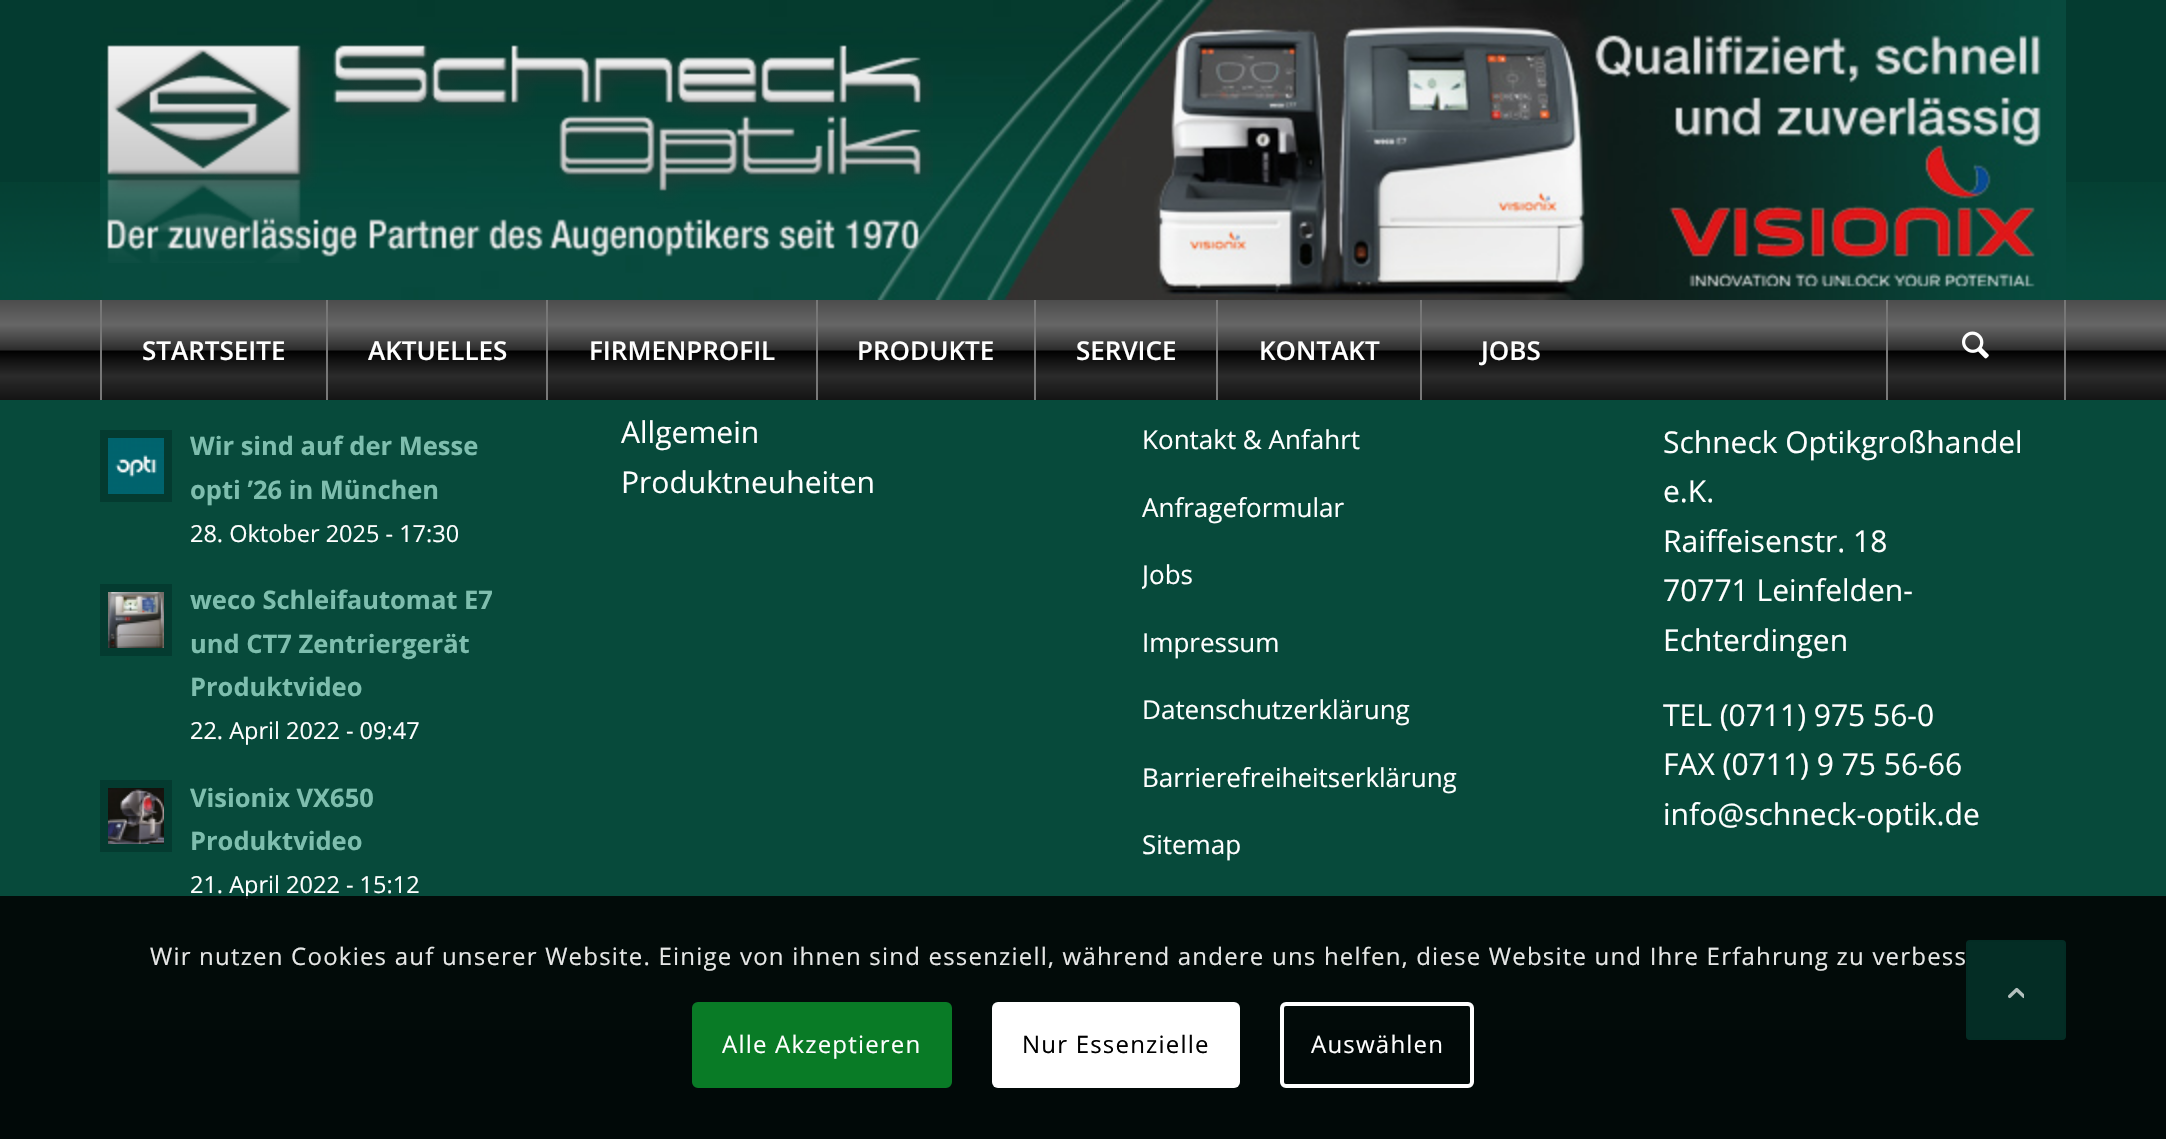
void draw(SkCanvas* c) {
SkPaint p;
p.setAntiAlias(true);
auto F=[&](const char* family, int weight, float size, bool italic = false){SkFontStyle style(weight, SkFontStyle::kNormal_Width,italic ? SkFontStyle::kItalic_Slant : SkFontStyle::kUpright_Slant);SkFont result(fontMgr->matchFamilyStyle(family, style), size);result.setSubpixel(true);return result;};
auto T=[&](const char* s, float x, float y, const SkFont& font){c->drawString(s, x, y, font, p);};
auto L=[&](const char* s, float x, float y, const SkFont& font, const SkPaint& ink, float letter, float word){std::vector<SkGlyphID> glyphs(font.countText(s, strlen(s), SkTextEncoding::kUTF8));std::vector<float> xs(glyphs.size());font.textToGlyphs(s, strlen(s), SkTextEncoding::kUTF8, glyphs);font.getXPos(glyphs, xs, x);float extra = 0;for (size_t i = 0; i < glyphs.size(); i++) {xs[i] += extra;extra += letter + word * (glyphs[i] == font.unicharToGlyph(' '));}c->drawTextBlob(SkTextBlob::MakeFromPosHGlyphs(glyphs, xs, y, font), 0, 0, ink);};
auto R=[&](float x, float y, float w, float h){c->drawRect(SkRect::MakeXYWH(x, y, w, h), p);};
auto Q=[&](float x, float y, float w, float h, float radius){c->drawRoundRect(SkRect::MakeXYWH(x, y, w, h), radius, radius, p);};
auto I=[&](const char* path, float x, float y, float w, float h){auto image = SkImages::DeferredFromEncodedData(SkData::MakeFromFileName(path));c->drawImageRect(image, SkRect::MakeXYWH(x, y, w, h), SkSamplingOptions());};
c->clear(0xff074a3b);
p.setColor(0xff043b30);
R(0,0,2166,182);
I("1.png",0,182,2166,118);
I("2.png",100,0,1966,300);
I("3.png",105,43,828,220);
{
const SkColor colors[] = {0xff4c4c4c,0xff595959,0xff666666,0xff474747,0xff2c2c2c,0xff000000,0xff111111,0xff2b2b2b,0xff1c1c1c,0xff131313};
const float stops[] = {0,.12,.25,.39,.5,.51,.6,.76,.91,1};
const SkPoint ends[] = {{1083,300}, {1083,400}};
p.setShader(SkGradientShader::MakeLinear(ends, colors, stops, 10, SkTileMode::kClamp));
p.setAlpha(255);
}
R(0,300,2166,100);
p.setShader(nullptr);
p.setColor(0xff777777);
R(100,300,2,100);
auto f1 = F("Open Sans",600,26);
p.setColor(0xffffffff);
T("STARTSEITE",142,360,f1);
p.setColor(0xff777777);
R(326,300,2,100);
p.setColor(0xffffffff);
T("AKTUELLES",368,360,f1);
p.setColor(0xff777777);
R(546,300,2,100);
p.setColor(0xffffffff);
T("FIRMENPROFIL",589,360,f1);
p.setColor(0xff777777);
R(816,300,2,100);
p.setColor(0xffffffff);
T("PRODUKTE",857,360,f1);
p.setColor(0xff777777);
R(1034,300,2,100);
p.setColor(0xffffffff);
T("SERVICE",1076,360,f1);
p.setColor(0xff777777);
R(1216,300,2,100);
p.setColor(0xffffffff);
T("KONTAKT",1259,360,f1);
p.setColor(0xff777777);
R(1420,300,2,100);
p.setColor(0xffffffff);
T("JOBS",1481,360,f1);
p.setColor(0xff777777);
R(2064,300,2,100);
R(1886,300,2,100);
I("4.png",1962,331,27,28);
p.setColor(0xff043b30);
R(100,430,72,72);
I("5.png",108,438,56,56);
auto f2 = F("Open Sans",700,25.5);
p.setColor(0xff7ebeae);
T("Wir sind auf der Messe",190,455,f2);
T("opti ’26 in München",190,499,f2);
auto f3 = F("Open Sans",400,23.5);
p.setColor(0xffffffff);
T("28. Oktober 2025 - 17:30",190,542,f3);
p.setColor(0xff043b30);
R(100,584,72,72);
I("6.png",108,592,56,56);
p.setColor(0xff7ebeae);
T("weco Schleifautomat E7",190,609,f2);
T("und CT7 Zentriergerät",190,653,f2);
T("Produktvideo",190,696,f2);
p.setColor(0xffffffff);
T("22. April 2022 - 09:47",190,739,f3);
p.setColor(0xff043b30);
R(100,780,72,72);
I("7.png",108,788,56,56);
p.setColor(0xff7ebeae);
T("Visionix VX650",190,807,f2);
T("Produktvideo",190,850,f2);
p.setColor(0xffffffff);
T("21. April 2022 - 15:12",190,893,f3);
auto f4 = F("Open Sans",400,30);
T("Allgemein",621,443,f4);
T("Produktneuheiten",621,493,f4);
auto f5 = F("Open Sans",400,26);
T("Kontakt & Anfahrt",1142,449,f5);
T("Anfrageformular",1142,517,f5);
c->save();
c->clipRect(SkRect::MakeXYWH(1142,326,402,554));
T("Jobs",1142,584,f5);
c->restore();
T("Impressum",1142,652,f5);
T("Datenschutzerklärung",1142,719,f5);
T("Barrierefreiheitserklärung",1142,787,f5);
T("Sitemap",1142,854,f5);
T("Schneck Optikgroßhandel",1663,453,f4);
T("e.K.",1663,502,f4);
T("Raiffeisenstr. 18",1663,552,f4);
T("70771 Leinfelden-",1663,601,f4);
T("Echterdingen",1663,651,f4);
T("TEL (0711) 975 56-0",1663,726,f4);
T("FAX (0711) 9 75 56-66",1663,775,f4);
T("info@schneck-optik.de",1663,825,f4);
p.setColor(0xff043b30);
R(0,1030,2166,109);
p.setColor(0xd9000000);
R(0,896,2166,243);
auto f6 = F("Open Sans",400,24);
p.setColor(0xffe6e7e6);
L("Wir nutzen Cookies auf unserer Website. Einige von ihnen sind essenziell, während andere uns helfen, diese Website und Ihre Erfahrung zu verbess",150,965,f6,p,1.2,0);
p.setColor(0xff097b26);
c->drawRoundRect(SkRect::MakeXYWH(694,1004,256,82),4,4,p);
p.setStroke(true);
p.setStrokeWidth(4);
c->drawRoundRect(SkRect::MakeXYWH(694,1004,256,82),4,4,p);
p.setStroke(false);
p.setColor(0xffffffff);
L("Alle Akzeptieren",722,1053,f6,p,1.2,0);
Q(992,1002,248,86,6);
p.setColor(0xff000000);
L("Nur Essenzielle",1022,1053,f6,p,1.2,0);
p.setStroke(true);
p.setColor(0xffffffff);
c->drawRoundRect(SkRect::MakeXYWH(1282,1004,190,82),4,4,p);
p.setStroke(false);
L("Auswählen",1311,1053,f6,p,1.2,0);
p.setColor(0xb3043b30);
c->drawRoundRect(SkRect::MakeXYWH(1967,941,98,98),3,3,p);
p.setStroke(true);
p.setStrokeWidth(2);
p.setColor(0xff032c24);
c->drawRoundRect(SkRect::MakeXYWH(1967,941,98,98),3,3,p);
I("8.png",2008,987,16,12);
}
